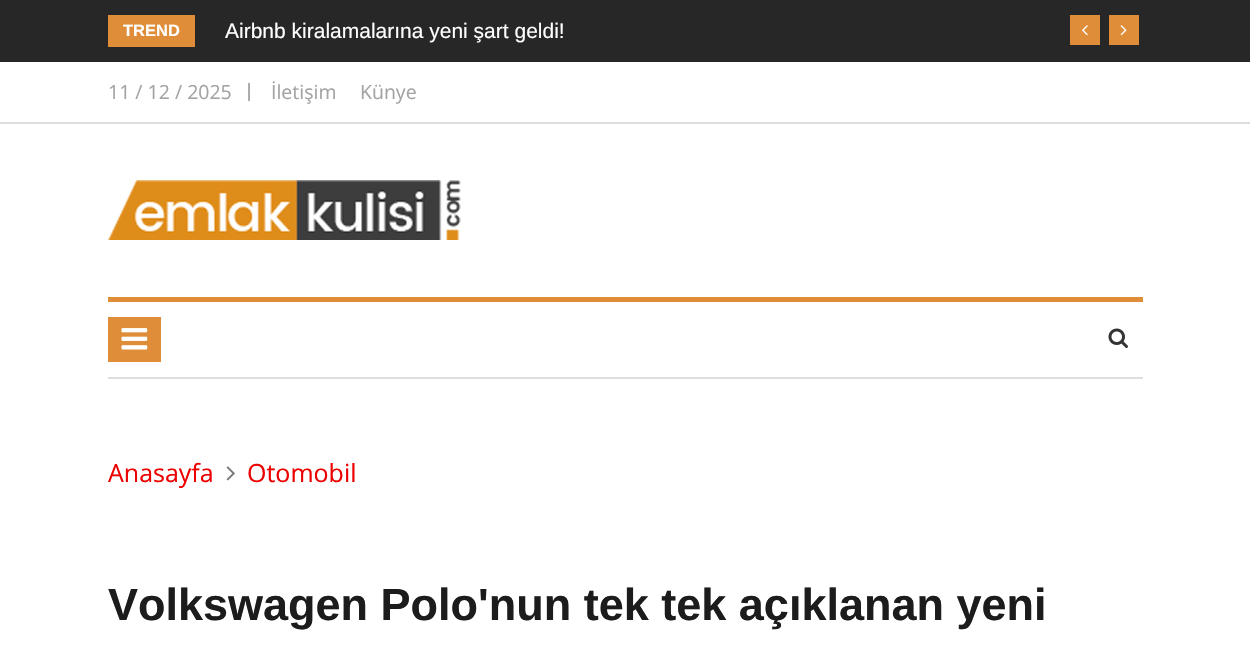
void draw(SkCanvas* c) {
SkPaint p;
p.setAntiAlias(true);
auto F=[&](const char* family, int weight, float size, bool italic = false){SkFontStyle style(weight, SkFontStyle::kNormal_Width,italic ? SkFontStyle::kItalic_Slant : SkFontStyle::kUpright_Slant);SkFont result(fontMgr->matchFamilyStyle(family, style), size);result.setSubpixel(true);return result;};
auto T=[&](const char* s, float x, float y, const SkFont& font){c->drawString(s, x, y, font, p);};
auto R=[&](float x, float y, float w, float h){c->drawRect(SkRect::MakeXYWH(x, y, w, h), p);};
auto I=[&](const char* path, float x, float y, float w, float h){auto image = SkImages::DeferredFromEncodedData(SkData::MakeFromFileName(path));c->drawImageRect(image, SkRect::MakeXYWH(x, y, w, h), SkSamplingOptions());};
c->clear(0xffffffff);
p.setColor(0xff272727);
R(0,0,1250,62);
p.setColor(0xffdf8d38);
R(108,15,87,32);
auto f1 = F("Liberation Sans",700,16.5);
p.setColor(0xffffffff);
T("TREND",123,36,f1);
auto f2 = F("Liberation Sans",400,21);
T("Airbnb kiralamalarına yeni şart geldi!",225,38,f2);
p.setColor(0xffdf8d38);
R(1070,15,30,30);
I("1.png",1082,25,6,11);
R(1109,15,30,30);
I("2.png",1120,25,7,11);
p.setColor(0xffdedede);
R(0,122,1250,2);
p.setColor(0xffacacac);
R(248,83,2,18);
auto f3 = F("Open Sans",400,19.5);
p.setColor(0xffa3a3a3);
T("11 / 12 / 2025",108,99,f3);
T("İletişim",271,99,f3);
T("Künye",360,99,f3);
I("3.png",108,180,353,60);
p.setColor(0xffdf8d38);
R(108,297,1035,5);
p.setColor(0xffdedede);
R(108,377,1035,2);
p.setColor(0xffdf8d38);
R(108,317,53,45);
I("4.png",121,328,27,22);
I("5.png",1108,328,20,20);
auto f4 = F("Open Sans",400,25);
p.setColor(0xffec0000);
T("Anasayfa",108,482,f4);
I("6.png",226,466,9,15);
T("Otomobil",247,482,f4);
auto f5 = F("Liberation Sans",700,45);
p.setColor(0xff1c1c1c);
T("Volkswagen Polo'nun tek tek açıklanan yeni",108,620,f5);
}
